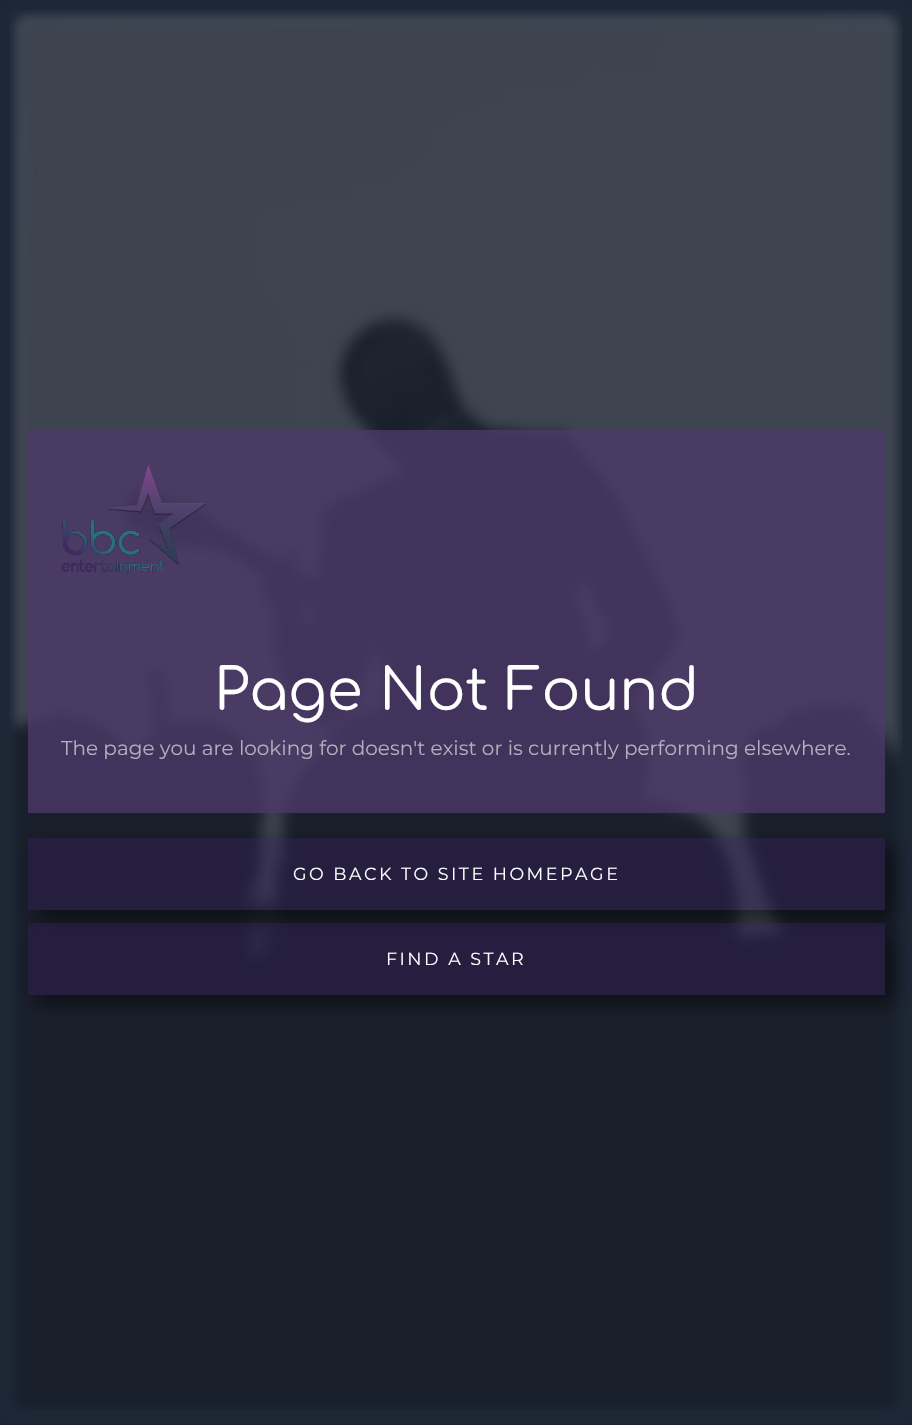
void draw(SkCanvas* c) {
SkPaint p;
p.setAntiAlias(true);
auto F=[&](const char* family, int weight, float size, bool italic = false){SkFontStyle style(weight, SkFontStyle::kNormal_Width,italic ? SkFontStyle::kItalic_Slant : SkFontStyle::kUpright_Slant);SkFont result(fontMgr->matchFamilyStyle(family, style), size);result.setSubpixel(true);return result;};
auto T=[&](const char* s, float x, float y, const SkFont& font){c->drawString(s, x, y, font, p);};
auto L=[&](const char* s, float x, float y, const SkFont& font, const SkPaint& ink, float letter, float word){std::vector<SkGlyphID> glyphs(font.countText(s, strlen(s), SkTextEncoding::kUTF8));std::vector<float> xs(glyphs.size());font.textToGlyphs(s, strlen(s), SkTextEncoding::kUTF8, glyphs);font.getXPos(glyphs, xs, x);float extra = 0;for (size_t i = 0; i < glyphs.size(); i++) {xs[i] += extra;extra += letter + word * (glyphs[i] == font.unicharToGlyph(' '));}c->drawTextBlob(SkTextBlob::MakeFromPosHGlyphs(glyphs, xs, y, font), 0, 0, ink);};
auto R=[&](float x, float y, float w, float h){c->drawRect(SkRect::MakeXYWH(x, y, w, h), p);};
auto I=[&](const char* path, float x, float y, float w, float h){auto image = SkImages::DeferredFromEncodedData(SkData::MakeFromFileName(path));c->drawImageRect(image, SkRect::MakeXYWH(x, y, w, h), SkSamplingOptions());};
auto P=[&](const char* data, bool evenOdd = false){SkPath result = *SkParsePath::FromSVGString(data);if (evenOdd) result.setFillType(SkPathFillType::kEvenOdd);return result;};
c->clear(0xff1c2635);
I("1.png",9,9,894,1402);
p.setColor(0x991e2331);
p.setMaskFilter(SkMaskFilter::MakeBlur(kNormal_SkBlurStyle, 6));
c->drawRect(SkRect::MakeXYWH(19,19,875,1387),p);
p.setMaskFilter(nullptr);
p.setColor(0xc74c3868);
R(28,430,857,383);
I("2.png",61,464,145,108);
auto f1 = F("Comfortaa",400,57.5);
p.setColor(0xffffffff);
T("Page Not Found",214,710,f1);
auto f2 = F("Montserrat",400,20);
p.setColor(0xffb4aebe);
T("The page you are looking for doesn't exist or is currently performing elsewhere.",61,755,f2);
c->save();
c->clipPath(P("M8 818h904v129h-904zm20 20h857v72h-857z",true),true);
p.setColor(0x85000000);
p.setMaskFilter(SkMaskFilter::MakeBlur(kNormal_SkBlurStyle, 9));
c->drawRect(SkRect::MakeXYWH(36,846,858,73),p);
p.setMaskFilter(nullptr);
c->restore();
p.setColor(0x63361c5c);
R(28,838,857,72);
auto f3 = F("Montserrat",400,17.5);
p.setColor(0xffffffff);
L("GO BACK TO SITE HOMEPAGE",293,880,f3,p,2.5,0);
c->save();
c->clipPath(P("M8 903h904v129h-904zm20 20h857v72h-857z",true),true);
p.setColor(0x85000000);
p.setMaskFilter(SkMaskFilter::MakeBlur(kNormal_SkBlurStyle, 9));
c->drawRect(SkRect::MakeXYWH(36,931,858,73),p);
p.setMaskFilter(nullptr);
c->restore();
p.setColor(0x63361c5c);
R(28,923,857,72);
p.setColor(0xffffffff);
L("FIND A STAR",386,965,f3,p,2.5,0);
}
